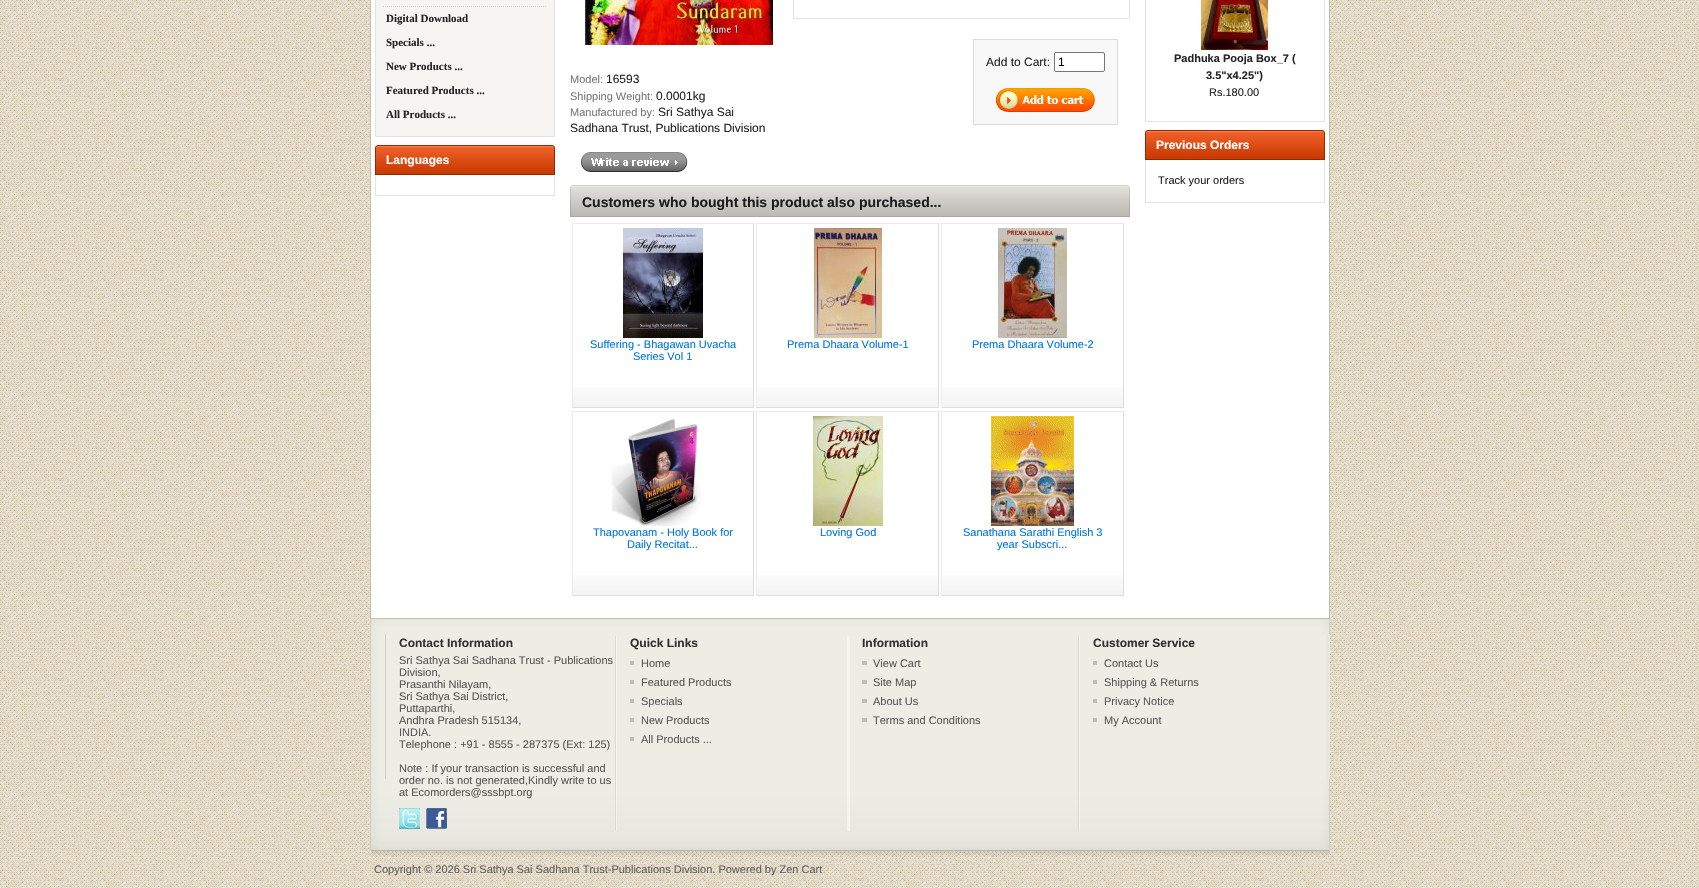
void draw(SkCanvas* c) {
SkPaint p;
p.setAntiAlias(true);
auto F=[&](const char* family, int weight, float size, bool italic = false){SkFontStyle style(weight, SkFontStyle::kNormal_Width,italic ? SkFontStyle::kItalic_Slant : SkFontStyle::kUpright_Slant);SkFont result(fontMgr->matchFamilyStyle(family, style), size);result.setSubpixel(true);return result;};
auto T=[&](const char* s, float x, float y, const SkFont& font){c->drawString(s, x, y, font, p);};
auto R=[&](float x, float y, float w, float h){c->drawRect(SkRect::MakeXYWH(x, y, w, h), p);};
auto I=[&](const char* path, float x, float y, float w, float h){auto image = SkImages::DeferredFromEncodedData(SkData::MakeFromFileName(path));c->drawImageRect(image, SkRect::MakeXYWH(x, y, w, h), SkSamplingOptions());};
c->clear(0xffffffff);
I("1.png",0,0,1699,888);
p.setColor(0xffffffff);
c->drawRect(SkRect::MakeXYWH(370.5,-.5,959,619),p);
p.setStroke(true);
p.setStrokeWidth(1);
p.setColor(0xffc4bfad);
c->drawRect(SkRect::MakeXYWH(370.5,-.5,959,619),p);
p.setStroke(false);
p.setColor(0xfff7f5f3);
c->drawRect(SkRect::MakeXYWH(375.5,-.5,179,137),p);
p.setStroke(true);
p.setColor(0xffe4e4e4);
c->drawRect(SkRect::MakeXYWH(375.5,-.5,179,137),p);
I("2.png",383,6,163,1);
auto f1 = F("Liberation Serif",700,11);
p.setStroke(false);
p.setColor(0xff242424);
T("Digital Download",386,22,f1);
T("Specials ...",386,46,f1);
T("New Products ...",386,70,f1);
T("Featured Products ...",386,94,f1);
T("All Products ...",386,118,f1);
I("3.png",375,145,180,30);
I("4.png",552,145,3,29);
auto f2 = F("Liberation Sans",700,12);
p.setColor(0xffffffff);
T("Languages",386,164,f2);
p.setColor(0xffe4e4e4);
R(554,175,1,21);
R(375,195,180,1);
R(375,175,1,21);
p.setStroke(true);
p.setColor(0xffe5e5e5);
c->drawRect(SkRect::MakeXYWH(793.5,-.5,336,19),p);
p.setStroke(false);
p.setColor(0xfff8f8f8);
c->drawRect(SkRect::MakeXYWH(973.5,39.5,144,85),p);
p.setStroke(true);
p.setColor(0xffdadada);
c->drawRect(SkRect::MakeXYWH(973.5,39.5,144,85),p);
auto f3 = F("Liberation Sans",400,12);
p.setStroke(false);
p.setColor(0xff242424);
T("Add to Cart:",986,66,f3);
p.setColor(0xffffffff);
c->drawRoundRect(SkRect::MakeXYWH(1054.5,52.5,50,19),1.5,1.5,p);
p.setStroke(true);
p.setColor(0xff767676);
c->drawRoundRect(SkRect::MakeXYWH(1054.5,52.5,50,19),1.5,1.5,p);
p.setStroke(false);
p.setColor(0xff000000);
T("1",1058,66,f3);
I("5.png",995,88,100,24);
I("6.png",585,0,188,45);
auto f4 = F("Liberation Sans",400,11);
p.setColor(0xff777777);
T("Model:",570,83,f4);
p.setColor(0xff242424);
T("16593",606,83,f3);
p.setColor(0xff777777);
T("Shipping Weight:",570,100,f4);
p.setColor(0xff242424);
T("0.0001kg",656,100,f3);
p.setColor(0xff777777);
T("Manufactured by:",570,116,f4);
p.setColor(0xff242424);
T("Sri Sathya Sai",658,116,f3);
T("Sadhana Trust, Publications Division",570,132,f3);
I("7.png",580,152,108,20);
I("8.png",570,185,560,32);
I("9.png",570,185,3,31);
auto f5 = F("Liberation Sans",700,14);
p.setColor(0xff1d1c1c);
T("Customers who bought this product also purchased...",582,207,f5);
I("10.png",573,387,180,20);
p.setColor(0xffebebeb);
R(572,223,182,1);
p.setColor(0xffdddddd);
R(753,223,1,185);
R(572,407,182,1);
p.setColor(0xffebebeb);
R(572,223,1,185);
I("11.png",623,228,80,110);
p.setColor(0xff0075e2);
T("Suffering - Bhagawan Uvacha",590,348,f4);
T("Series Vol 1",633,360,f4);
I("12.png",757,387,181,20);
p.setColor(0xffebebeb);
R(756,223,183,1);
p.setColor(0xffdddddd);
R(938,223,1,185);
R(756,407,183,1);
p.setColor(0xffebebeb);
R(756,223,1,185);
I("13.png",814,228,68,110);
p.setColor(0xff0075e2);
T("Prema Dhaara Volume-1",787,348,f4);
I("12.png",942,387,181,20);
p.setColor(0xffebebeb);
R(941,223,183,1);
p.setColor(0xffdddddd);
R(1123,223,1,185);
R(941,407,183,1);
p.setColor(0xffebebeb);
R(941,223,1,185);
I("14.png",998,228,69,110);
p.setColor(0xff0075e2);
T("Prema Dhaara Volume-2",972,348,f4);
I("10.png",573,575,180,20);
p.setColor(0xffebebeb);
R(572,411,182,1);
p.setColor(0xffdddddd);
R(753,411,1,185);
R(572,595,182,1);
p.setColor(0xffebebeb);
R(572,411,1,185);
I("15.png",612,419,89,107);
p.setColor(0xff0075e2);
T("Thapovanam - Holy Book for",593,536,f4);
T("Daily Recitat...",627,548,f4);
I("12.png",757,575,181,20);
p.setColor(0xffebebeb);
R(756,411,183,1);
p.setColor(0xffdddddd);
R(938,411,1,185);
R(756,595,183,1);
p.setColor(0xffebebeb);
R(756,411,1,185);
I("16.png",813,416,70,110);
p.setColor(0xff0075e2);
T("Loving God",820,536,f4);
I("12.png",942,575,181,20);
p.setColor(0xffebebeb);
R(941,411,183,1);
p.setColor(0xffdddddd);
R(1123,411,1,185);
R(941,595,183,1);
p.setColor(0xffebebeb);
R(941,411,1,185);
I("17.png",991,416,83,110);
p.setColor(0xff0075e2);
T("Sanathana Sarathi English 3",963,536,f4);
T("year Subscri...",997,548,f4);
p.setColor(0xffe4e4e4);
R(1324,0,1,122);
R(1145,121,180,1);
R(1145,0,1,122);
I("18.png",1201,0,67,50);
auto f6 = F("Liberation Sans",700,11);
p.setColor(0xff242424);
T("Padhuka Pooja Box_7 (",1174,62,f6);
T("3.5\"x4.25\")",1206,79,f6);
T("Rs.180.00",1209,96,f4);
I("3.png",1145,130,180,30);
I("4.png",1322,130,3,29);
p.setColor(0xffffffff);
T("Previous Orders",1156,149,f2);
p.setColor(0xffe4e4e4);
R(1324,160,1,43);
R(1145,202,180,1);
R(1145,160,1,43);
p.setColor(0xff242424);
T("Track your orders",1158,184,f4);
p.setColor(0xffeeede5);
R(386,634,940,145);
I("19.png",370,619,16,232);
p.setColor(0xffe8e7df);
R(1326,634,4,145);
I("20.png",371,619,600,15);
I("21.png",971,619,359,15);
I("22.png",371,779,600,72);
I("23.png",971,779,359,72);
p.setColor(0xff313131);
T("Contact Information",399,647,f2);
I("24.png",615,636,2,18);
T("Quick Links",630,647,f2);
p.setColor(0xfff5f4ef);
R(847,636,3,195);
p.setColor(0xff313131);
T("Information",862,647,f2);
I("24.png",1078,636,2,18);
T("Customer Service",1093,647,f2);
p.setColor(0xff575757);
T("Sri Sathya Sai Sadhana Trust - Publications",399,664,f4);
T("Division,",399,676,f4);
T("Prasanthi Nilayam,",399,688,f4);
T("Sri Sathya Sai District,",399,700,f4);
T("Puttaparthi,",399,712,f4);
T("Andhra Pradesh 515134,",399,724,f4);
T("INDIA.",399,736,f4);
T("Telephone : +91 - 8555 - 287375 (Ext: 125)",399,748,f4);
T("Note : If your transaction is successful and",399,772,f4);
T("order no. is not generated,Kindly write to us",399,784,f4);
T("at Ecomorders@sssbpt.org",399,796,f4);
I("25.png",399,808,21,21);
I("26.png",426,808,21,21);
I("27.png",615,654,2,177);
p.setColor(0xffbebdb7);
R(630,661,4,4);
p.setColor(0xff575757);
T("Home",641,667,f4);
p.setColor(0xffbebdb7);
R(630,680,4,4);
p.setColor(0xff575757);
T("Featured Products",641,686,f4);
p.setColor(0xffbebdb7);
R(630,699,4,4);
p.setColor(0xff575757);
T("Specials",641,705,f4);
p.setColor(0xffbebdb7);
R(630,718,4,4);
p.setColor(0xff575757);
T("New Products",641,724,f4);
p.setColor(0xffbebdb7);
R(630,737,4,4);
p.setColor(0xff575757);
T("All Products ...",641,743,f4);
p.setColor(0xffbebdb7);
R(862,661,5,4);
p.setColor(0xff575757);
T("View Cart",873,667,f4);
p.setColor(0xffbebdb7);
R(862,680,5,4);
p.setColor(0xff575757);
T("Site Map",873,686,f4);
p.setColor(0xffbebdb7);
R(862,699,5,4);
p.setColor(0xff575757);
T("About Us",873,705,f4);
p.setColor(0xffbebdb7);
R(862,718,5,4);
p.setColor(0xff575757);
T("Terms and Conditions",873,724,f4);
I("27.png",1078,654,2,177);
p.setColor(0xffbebdb7);
R(1093,661,4,4);
p.setColor(0xff575757);
T("Contact Us",1104,667,f4);
p.setColor(0xffbebdb7);
R(1093,680,4,4);
p.setColor(0xff575757);
T("Shipping & Returns",1104,686,f4);
p.setColor(0xffbebdb7);
R(1093,699,4,4);
p.setColor(0xff575757);
T("Privacy Notice",1104,705,f4);
p.setColor(0xffbebdb7);
R(1093,718,4,4);
p.setColor(0xff575757);
T("My Account",1104,724,f4);
I("28.png",370,851,960,6);
p.setColor(0xff606060);
T("Copyright © 2026 Sri Sathya Sai Sadhana Trust-Publications Division. Powered by Zen Cart",374,873,f4);
}
